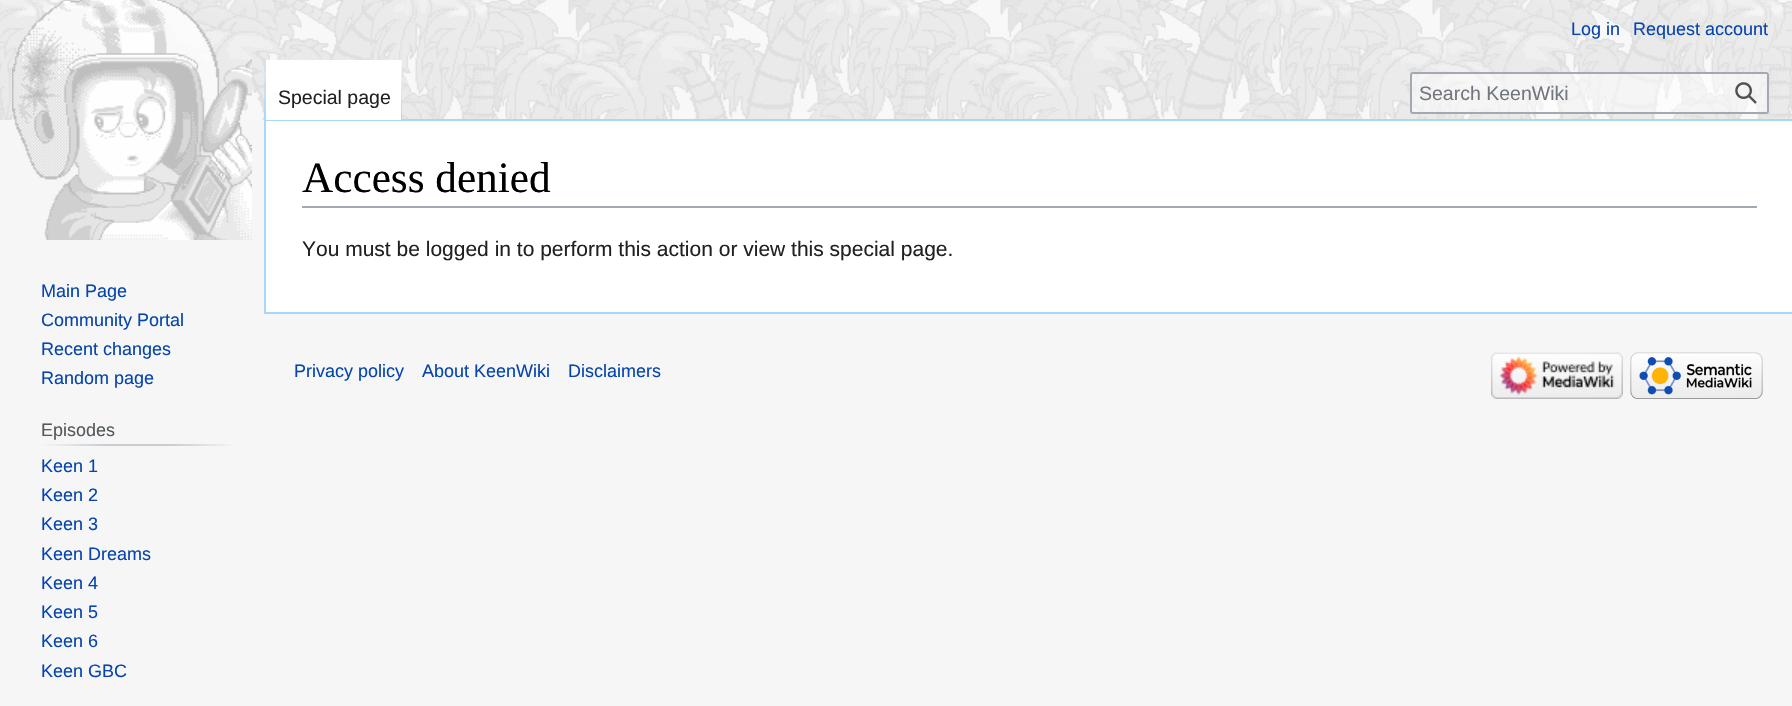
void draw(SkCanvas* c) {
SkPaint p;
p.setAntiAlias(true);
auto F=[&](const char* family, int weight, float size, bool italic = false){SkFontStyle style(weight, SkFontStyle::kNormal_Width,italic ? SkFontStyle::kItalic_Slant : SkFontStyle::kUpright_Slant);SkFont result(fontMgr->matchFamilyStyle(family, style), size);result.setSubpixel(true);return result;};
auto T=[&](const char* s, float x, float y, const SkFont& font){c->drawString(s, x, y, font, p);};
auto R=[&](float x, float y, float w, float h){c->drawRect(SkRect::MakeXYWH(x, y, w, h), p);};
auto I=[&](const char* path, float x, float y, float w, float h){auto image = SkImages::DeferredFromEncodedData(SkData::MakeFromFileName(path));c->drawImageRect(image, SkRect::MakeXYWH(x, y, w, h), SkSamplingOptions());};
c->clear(0xfff6f6f6);
I("1.png",0,0,1792,120);
auto f1 = F("Liberation Sans",400,18);
p.setColor(0xff0645ad);
T("Log in",1571,35,f1);
T("Request account",1633,35,f1);
p.setColor(0xffa7d7f9);
R(264,119,1528,2);
R(264,312,1528,2);
R(264,119,2,195);
{
const SkColor colors[] = {0x00a7d7f9,0xffa7d7f9};
const float stops[] = {0,1};
const SkPoint ends[] = {{265,60}, {265,120}};
p.setShader(SkGradientShader::MakeLinear(ends, colors, stops, 2, SkTileMode::kClamp));
p.setAlpha(255);
}
R(264,60,2,60);
p.setShader(nullptr);
p.setColor(0xffffffff);
R(266,60,135,60);
{
const SkColor colors[] = {0xffffffff,0xffa7d7f9};
const float stops[] = {0,1};
const SkPoint ends[] = {{401,60}, {401,120}};
p.setShader(SkGradientShader::MakeLinear(ends, colors, stops, 2, SkTileMode::kClamp));
p.setAlpha(255);
}
R(401,60,1,60);
auto f2 = F("Liberation Sans",400,19.5);
p.setShader(nullptr);
p.setColor(0xff202122);
T("Special page",278,104,f2);
p.setColor(0x80ffffff);
c->drawRoundRect(SkRect::MakeXYWH(1411,73,357,40),2,2,p);
p.setStroke(true);
p.setStrokeWidth(2);
p.setColor(0xffa2a9b1);
c->drawRoundRect(SkRect::MakeXYWH(1411,73,357,40),2,2,p);
p.setStroke(false);
p.setColor(0xff72777d);
T("Search KeenWiki",1419,100,f2);
I("2.png",1735,82,22,22);
I("3.png",12,0,240,240);
p.setColor(0xff0645ad);
T("Main Page",41,297,f1);
T("Community Portal",41,326,f1);
T("Recent changes",41,355,f1);
T("Random page",41,384,f1);
{
const SkColor colors[] = {0xfff6f6f6,0xffc8ccd1,0xffc8ccd1,0xfff6f6f6};
const float stops[] = {0,.33,.66,1};
const SkPoint ends[] = {{41,445}, {237,445}};
p.setShader(SkGradientShader::MakeLinear(ends, colors, stops, 4, SkTileMode::kClamp));
p.setAlpha(255);
}
R(41,444,196,2);
p.setShader(nullptr);
p.setColor(0xff54595d);
T("Episodes",41,436,f1);
p.setColor(0xff0645ad);
T("Keen 1",41,472,f1);
T("Keen 2",41,501,f1);
T("Keen 3",41,530,f1);
T("Keen Dreams",41,560,f1);
T("Keen 4",41,589,f1);
T("Keen 5",41,618,f1);
T("Keen 6",41,647,f1);
T("Keen GBC",41,677,f1);
p.setColor(0xffffffff);
R(266,121,1526,191);
p.setColor(0xffa2a9b1);
R(302,206,1455,2);
auto f3 = F("Liberation Serif",400,43.25);
p.setColor(0xff000000);
T("Access denied",302,192,f3);
auto f4 = F("Liberation Sans",400,21);
p.setColor(0xff202122);
T("You must be logged in to perform this action or view this special page.",302,256,f4);
p.setColor(0xff0645ad);
T("Privacy policy",294,377,f1);
T("About KeenWiki",422,377,f1);
T("Disclaimers",568,377,f1);
I("4.png",1491,352,132,47);
I("5.png",1630,352,133,47);
}
